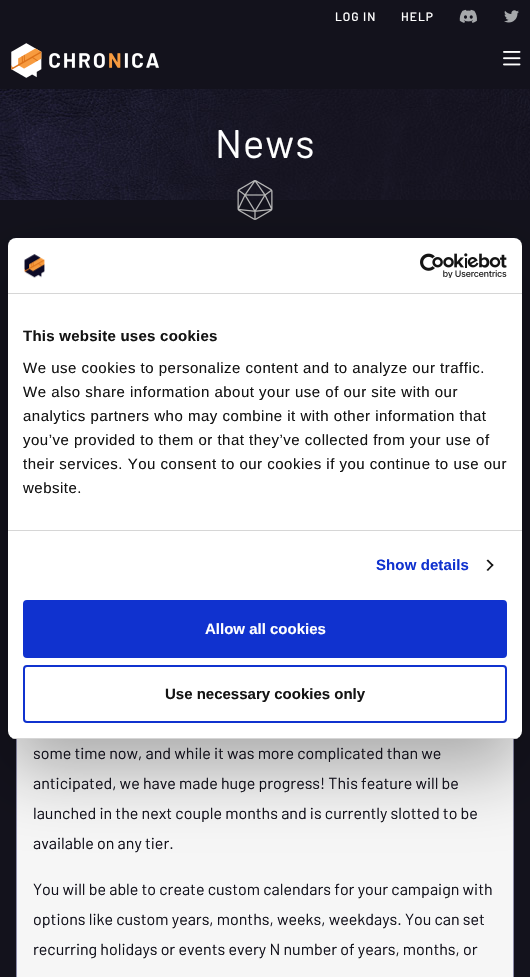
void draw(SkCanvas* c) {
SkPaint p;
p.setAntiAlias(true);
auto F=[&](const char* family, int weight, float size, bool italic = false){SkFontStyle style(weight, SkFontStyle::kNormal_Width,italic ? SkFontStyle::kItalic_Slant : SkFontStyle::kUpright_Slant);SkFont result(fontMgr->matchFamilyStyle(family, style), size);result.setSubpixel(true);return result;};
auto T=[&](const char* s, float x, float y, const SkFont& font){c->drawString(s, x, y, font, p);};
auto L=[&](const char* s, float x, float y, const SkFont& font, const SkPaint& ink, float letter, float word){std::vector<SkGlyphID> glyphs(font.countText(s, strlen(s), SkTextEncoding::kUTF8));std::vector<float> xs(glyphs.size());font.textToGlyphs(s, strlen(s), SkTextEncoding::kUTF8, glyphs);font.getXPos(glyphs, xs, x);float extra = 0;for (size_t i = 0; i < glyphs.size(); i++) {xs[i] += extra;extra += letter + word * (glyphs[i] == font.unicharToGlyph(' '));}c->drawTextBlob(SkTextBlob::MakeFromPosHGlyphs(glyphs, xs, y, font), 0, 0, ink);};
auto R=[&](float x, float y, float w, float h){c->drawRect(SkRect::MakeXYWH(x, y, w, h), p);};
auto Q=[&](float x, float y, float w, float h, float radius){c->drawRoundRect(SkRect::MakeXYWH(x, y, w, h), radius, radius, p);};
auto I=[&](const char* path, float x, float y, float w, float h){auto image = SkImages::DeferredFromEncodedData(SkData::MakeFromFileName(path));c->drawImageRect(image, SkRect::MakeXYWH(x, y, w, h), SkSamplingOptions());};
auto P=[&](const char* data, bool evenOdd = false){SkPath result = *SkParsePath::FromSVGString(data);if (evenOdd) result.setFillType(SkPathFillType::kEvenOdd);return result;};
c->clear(0xff13121c);
I("1.png",0,89,530,111);
auto f1 = F("Barlow",500,12);
p.setColor(0xffffffff);
L("LOG IN",335,21,f1,p,1,0);
L("HELP",401,21,f1,p,1,0);
I("2.png",459,9,18,14);
I("3.png",504,10,15,13);
I("4.png",11,43,148,35);
I("5.png",503,51,18,15);
auto f2 = F("Barlow",400,40);
L("News",215,158,f2,p,1,0);
I("6.png",237,180,36,40);
p.setColor(0xfff6f6f6);
R(17,739,496,238);
p.setStroke(true);
p.setStrokeWidth(1);
p.setColor(0xff8c8ca9);
c->drawRect(SkRect::MakeXYWH(16.5,316.5,497,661),p);
p.setStroke(false);
p.setColor(0x4d000000);
p.setMaskFilter(SkMaskFilter::MakeBlur(kNormal_SkBlurStyle, 34));
c->drawRoundRect(SkRect::MakeXYWH(8,270,514,501),8,8,p);
p.setMaskFilter(nullptr);
p.setColor(0xffffffff);
Q(8,238,514,501,8);
p.setColor(0xffd6d6d6);
R(8,293,514,1);
I("7.png",24,254,21,24);
I("8.png",420,253,87,25);
R(8,530,514,1);
auto f3 = F("Liberation Sans",700,15);
p.setColor(0xff141414);
L("This website uses cookies",23,341,f3,p,.25,0);
auto f4 = F("Liberation Sans",400,15);
L("We use cookies to personalize content and to analyze our traffic.",23,373,f4,p,.5,0);
L("We also share information about your use of our site with our",23,397,f4,p,.5,0);
L("analytics partners who may combine it with other information that",23,421,f4,p,.5,0);
L("you’ve provided to them or that they’ve collected from your use of",23,445,f4,p,.5,0);
L("their services. You consent to our cookies if you continue to use our",23,469,f4,p,.5,0);
L("website.",23,493,f4,p,.5,0);
p.setColor(0xff1032cf);
L("Show details",376,570,f3,p,.1,0);
p.setColor(0xff141414);
c->drawPath(P("M488 559.5l5.5 5.5l-1 1.5l-6-6z"),p);
c->drawPath(P("M492.5 564l1 1l-5.5 6l-1.5-1z"),p);
c->save();
c->clipPath(P("M16 238h498c4.5 0 8 3.5 8 8v485c0 4.5-3.5 8-8 8h-498c-4.5 0-8-3.5-8-8v-485c0-4.5 3.5-8 8-8z"),true);
p.setColor(0xffd6d6d6);
R(8,738,514,1);
c->restore();
p.setColor(0xff1032cf);
c->drawRoundRect(SkRect::MakeXYWH(24,601,482,56),3,3,p);
p.setStroke(true);
p.setStrokeWidth(2);
c->drawRoundRect(SkRect::MakeXYWH(24,601,482,56),3,3,p);
p.setStroke(false);
p.setColor(0xffffffff);
T("Allow all cookies",205,634,f3);
p.setStroke(true);
p.setColor(0xff1032cf);
c->drawRoundRect(SkRect::MakeXYWH(24,666,482,56),3,3,p);
p.setStroke(false);
p.setColor(0xff141414);
T("Use necessary cookies only",165,699,f3);
auto f5 = F("Barlow",400,16);
p.setColor(0xff13121c);
T("some time now, and while it was more complicated than we",33,759,f5);
T("anticipated, we have made huge progress! This feature will be",33,789,f5);
T("launched in the next couple months and is currently slotted to be",33,819,f5);
T("available on any tier.",33,849,f5);
T("You will be able to create custom calendars for your campaign with",33,895,f5);
T("options like custom years, months, weeks, weekdays. You can set",33,925,f5);
T("recurring holidays or events every N number of years, months, or",33,955,f5);
}
